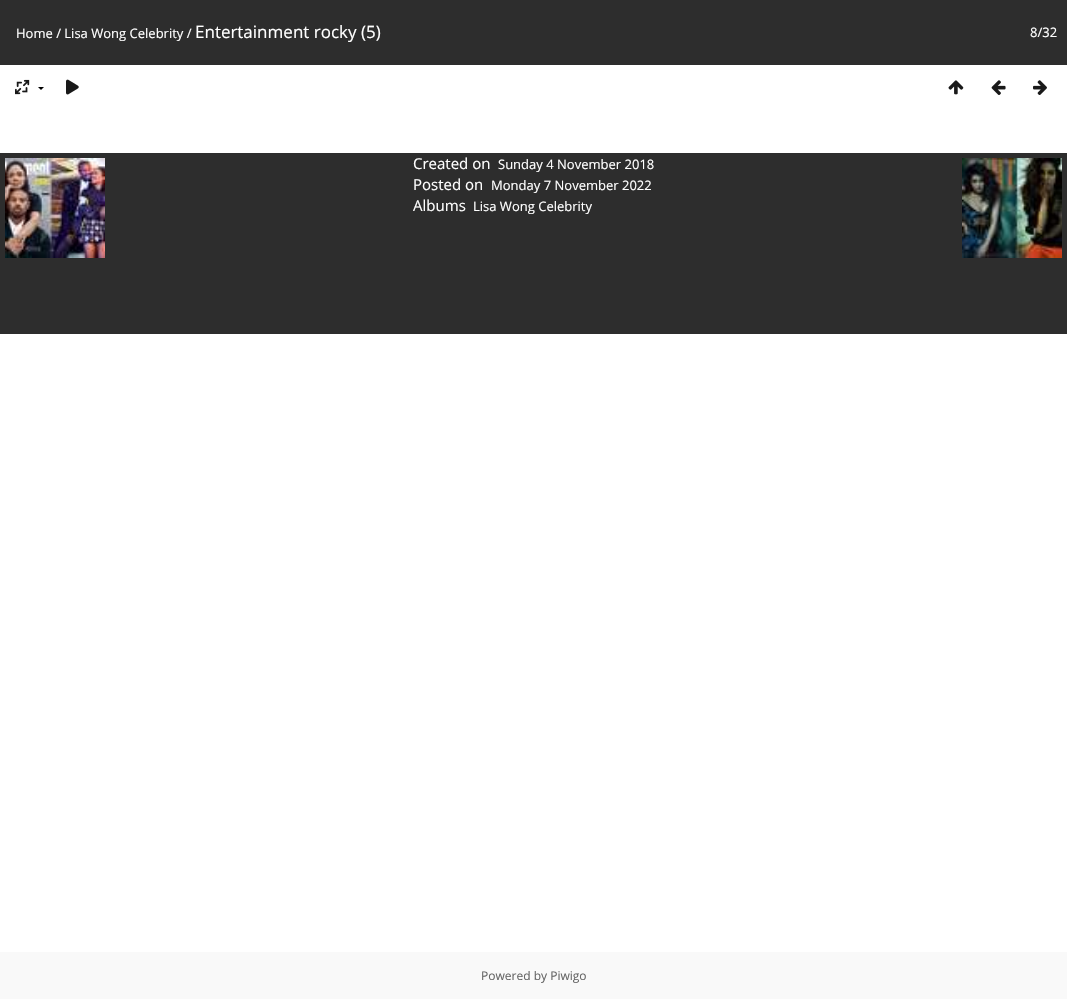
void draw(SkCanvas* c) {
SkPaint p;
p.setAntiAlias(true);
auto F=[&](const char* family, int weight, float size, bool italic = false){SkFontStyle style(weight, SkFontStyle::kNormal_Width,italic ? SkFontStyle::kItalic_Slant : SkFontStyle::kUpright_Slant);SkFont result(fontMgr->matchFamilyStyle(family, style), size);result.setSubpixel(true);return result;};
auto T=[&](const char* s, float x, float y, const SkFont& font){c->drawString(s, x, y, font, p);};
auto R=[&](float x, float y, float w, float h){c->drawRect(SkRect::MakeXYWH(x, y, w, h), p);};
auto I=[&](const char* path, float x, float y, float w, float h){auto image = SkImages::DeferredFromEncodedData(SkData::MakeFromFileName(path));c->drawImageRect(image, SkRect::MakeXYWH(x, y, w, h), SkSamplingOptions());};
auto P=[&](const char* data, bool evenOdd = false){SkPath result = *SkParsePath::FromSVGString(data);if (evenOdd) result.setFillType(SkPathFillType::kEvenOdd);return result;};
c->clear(0xffffffff);
p.setColor(0xff2d2d2d);
R(0,0,1067,65);
auto f1 = F("Open Sans",400,13);
p.setColor(0xffffffff);
T("Home / Lisa Wong Celebrity /",16,38,f1);
auto f2 = F("Open Sans",400,17);
T("Entertainment rocky (5)",195,38,f2);
T("8/32",1030,37,f1);
I("1.png",15,79,15,16);
p.setColor(0xff000000);
c->drawPath(P("M38 87h6l-3 3z"),p);
I("2.png",66,79,13,16);
I("3.png",948,80,16,15);
I("4.png",991,80,15,15);
I("5.png",1033,80,14,15);
p.setColor(0xff2d2d2d);
R(0,153,1067,181);
auto f3 = F("Open Sans",400,15);
p.setColor(0xffffffff);
T("Created on",413,169,f3);
T("Sunday 4 November 2018",498,169,f1);
T("Posted on",413,190,f3);
T("Monday 7 November 2022",491,190,f1);
T("Albums",413,211,f3);
T("Lisa Wong Celebrity",473,211,f1);
I("6.png",5,158,100,100);
I("7.png",962,158,100,100);
p.setColor(0xfff9f9f9);
R(0,952,1067,47);
auto f4 = F("Open Sans",400,12);
p.setColor(0xff666666);
T("Powered by Piwigo",481,980,f4);
}
